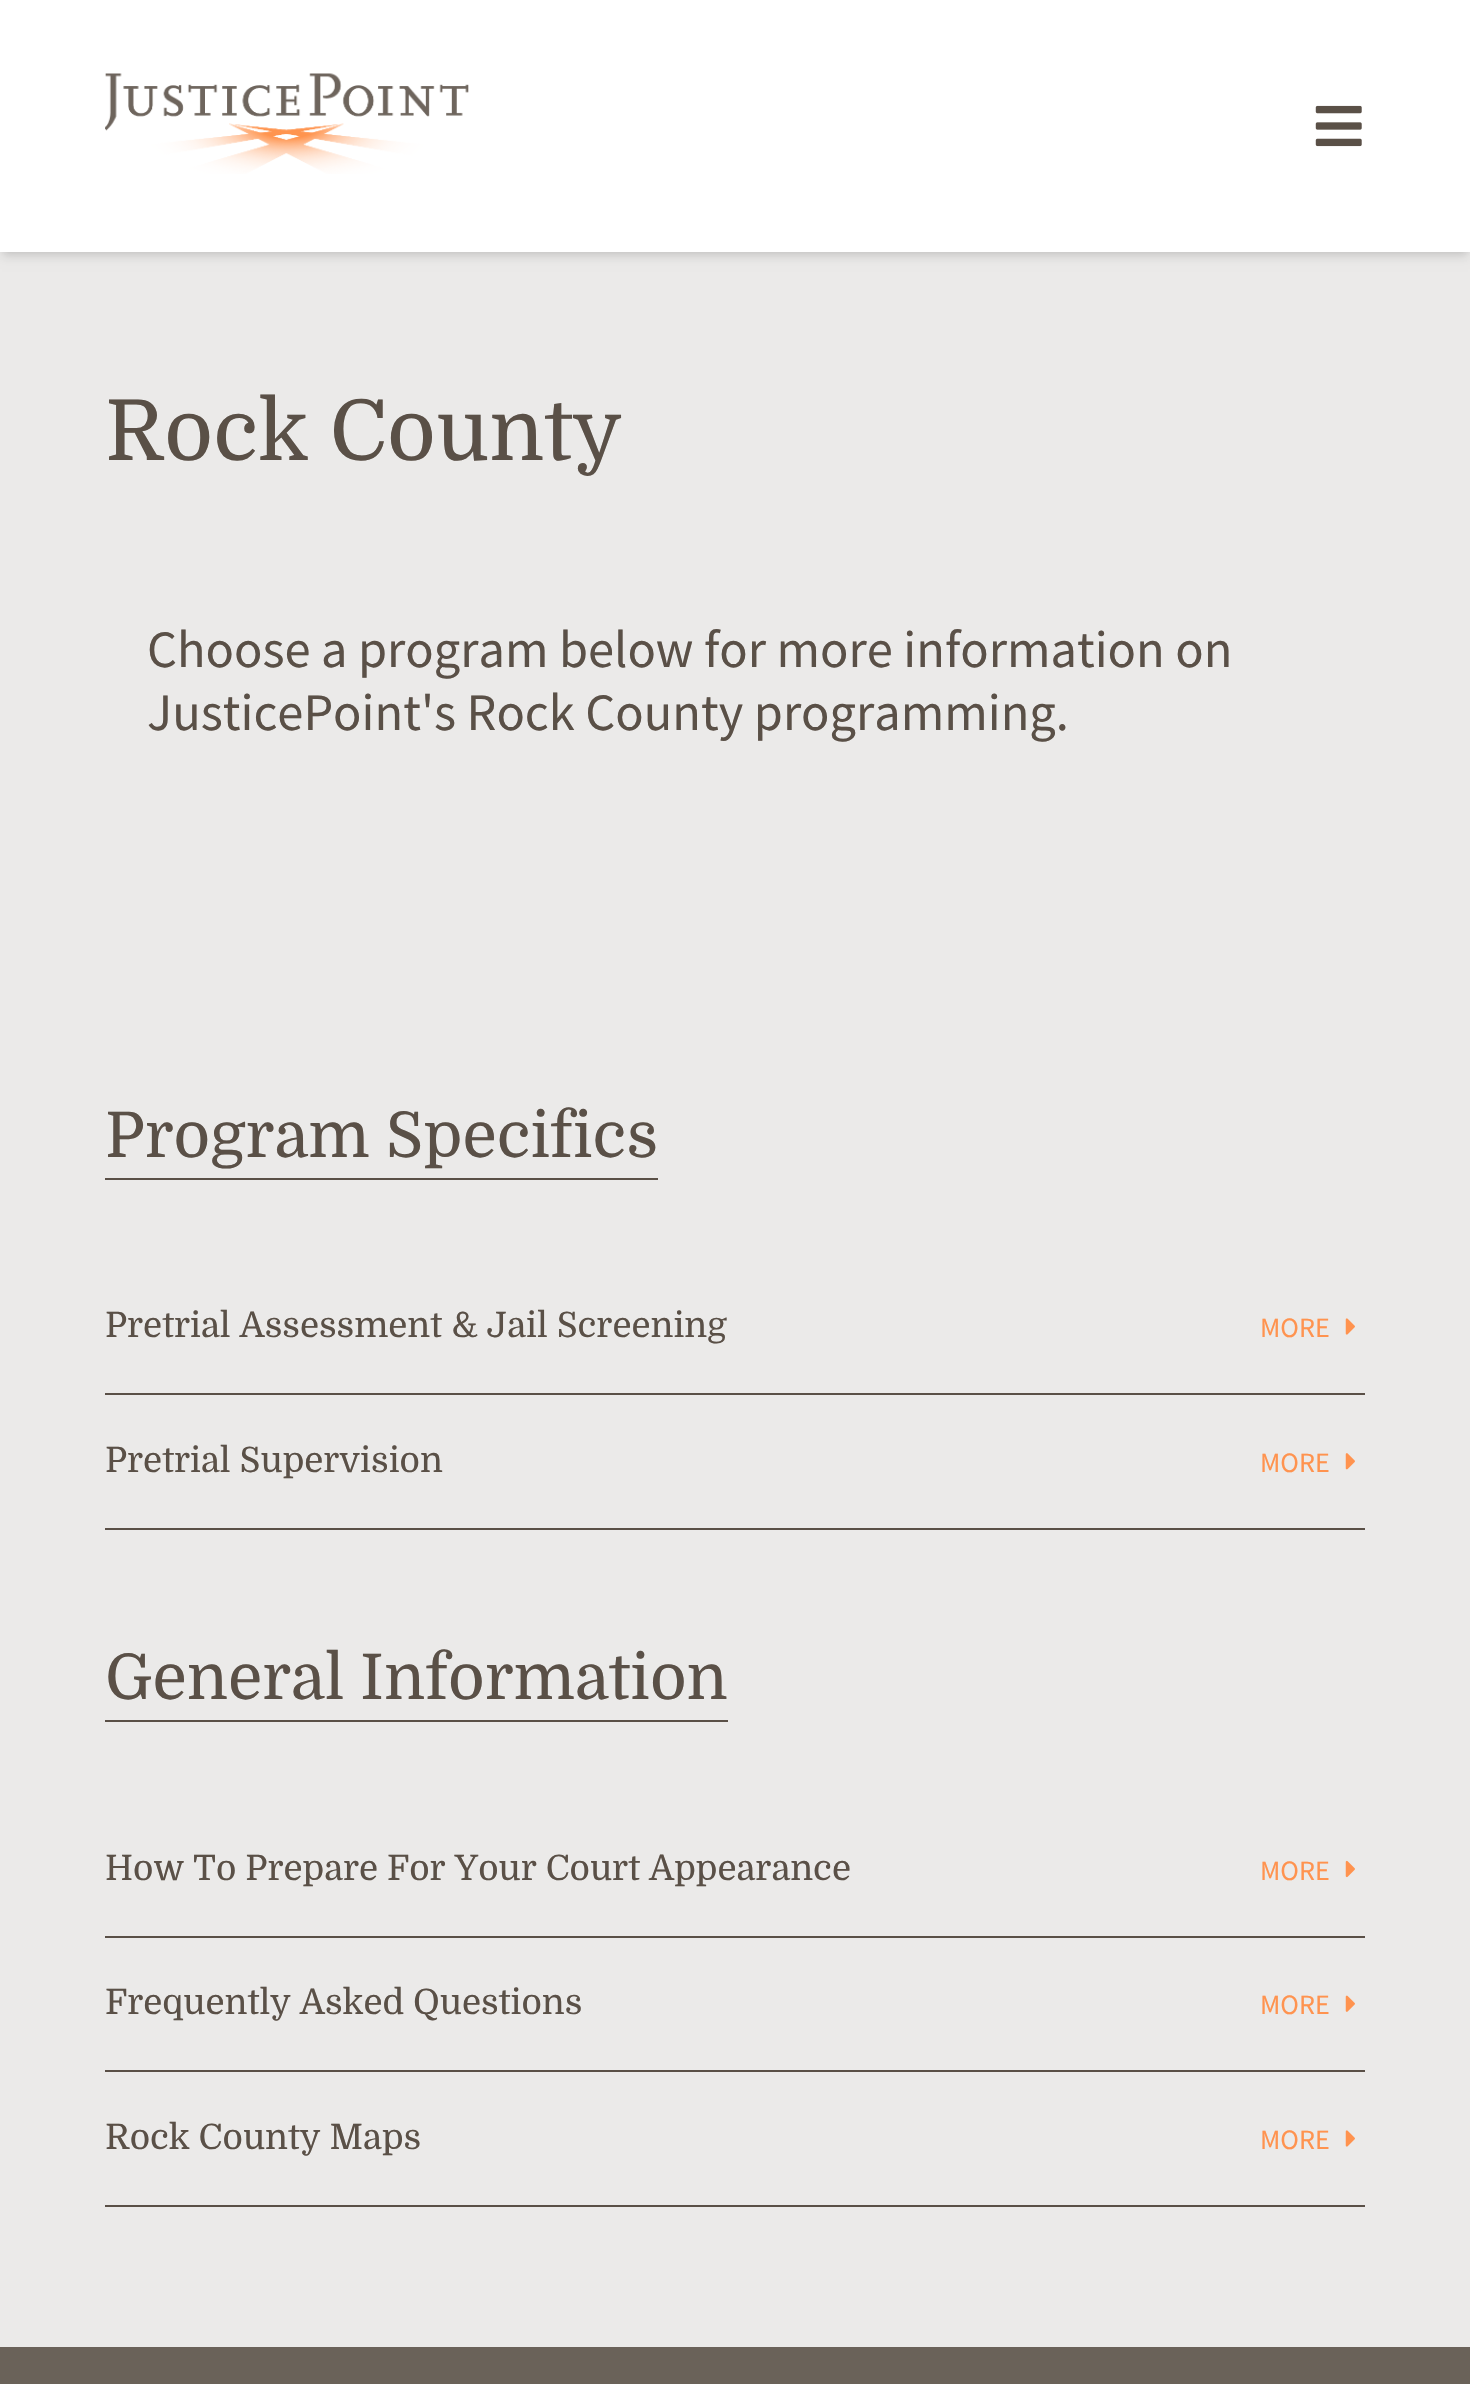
void draw(SkCanvas* c) {
SkPaint p;
p.setAntiAlias(true);
auto F=[&](const char* family, int weight, float size, bool italic = false){SkFontStyle style(weight, SkFontStyle::kNormal_Width,italic ? SkFontStyle::kItalic_Slant : SkFontStyle::kUpright_Slant);SkFont result(fontMgr->matchFamilyStyle(family, style), size);result.setSubpixel(true);return result;};
auto T=[&](const char* s, float x, float y, const SkFont& font){c->drawString(s, x, y, font, p);};
auto R=[&](float x, float y, float w, float h){c->drawRect(SkRect::MakeXYWH(x, y, w, h), p);};
auto I=[&](const char* path, float x, float y, float w, float h){auto image = SkImages::DeferredFromEncodedData(SkData::MakeFromFileName(path));c->drawImageRect(image, SkRect::MakeXYWH(x, y, w, h), SkSamplingOptions());};
c->clear(0xffebeae9);
p.setColor(0x1a000000);
p.setMaskFilter(SkMaskFilter::MakeBlur(kNormal_SkBlurStyle, 3.5));
c->drawRect(SkRect::MakeXYWH(4,7,1463,245),p);
p.setMaskFilter(nullptr);
p.setMaskFilter(SkMaskFilter::MakeBlur(kNormal_SkBlurStyle, 5));
c->drawRect(SkRect::MakeXYWH(2,9,1466,248),p);
p.setMaskFilter(nullptr);
p.setColor(0xffffffff);
R(0,0,1470,252);
I("1.png",105,73,364,101);
I("2.png",1315,105,47,42);
auto f1 = F("Domine",400,84);
p.setColor(0xff5a5047);
T("Rock County",105,460,f1);
auto f2 = F("Source Sans Pro",400,52.5);
T("Choose a program below for more information on",147,667,f2);
T("JusticePoint's Rock County programming.",147,730,f2);
auto f3 = F("Domine",400,63);
T("Program Specifics",105,1157,f3);
R(105,1178,553,2);
R(105,1393,1260,2);
auto f4 = F("Domine",400,35);
T("Pretrial Assessment & Jail Screening",105,1337,f4);
auto f5 = F("Source Sans Pro",400,28);
p.setColor(0xffff934f);
T("MORE",1260,1337,f5);
I("3.png",1345,1318,10,17);
p.setColor(0xff5a5047);
R(105,1528,1260,2);
T("Pretrial Supervision",105,1472,f4);
p.setColor(0xffff934f);
T("MORE",1260,1472,f5);
I("4.png",1345,1453,10,17);
p.setColor(0xff5a5047);
T("General Information",105,1699,f3);
R(105,1720,623,2);
R(105,1936,1260,2);
T("How To Prepare For Your Court Appearance",105,1880,f4);
p.setColor(0xffff934f);
T("MORE",1260,1880,f5);
I("5.png",1345,1860,10,18);
p.setColor(0xff5a5047);
R(105,2070,1260,2);
T("Frequently Asked Questions",105,2014,f4);
p.setColor(0xffff934f);
T("MORE",1260,2014,f5);
I("6.png",1345,1995,10,17);
p.setColor(0xff5a5047);
R(105,2205,1260,2);
T("Rock County Maps",105,2149,f4);
p.setColor(0xffff934f);
T("MORE",1260,2149,f5);
I("3.png",1345,2130,10,17);
p.setColor(0xff6a6259);
R(0,2347,1470,37);
}
